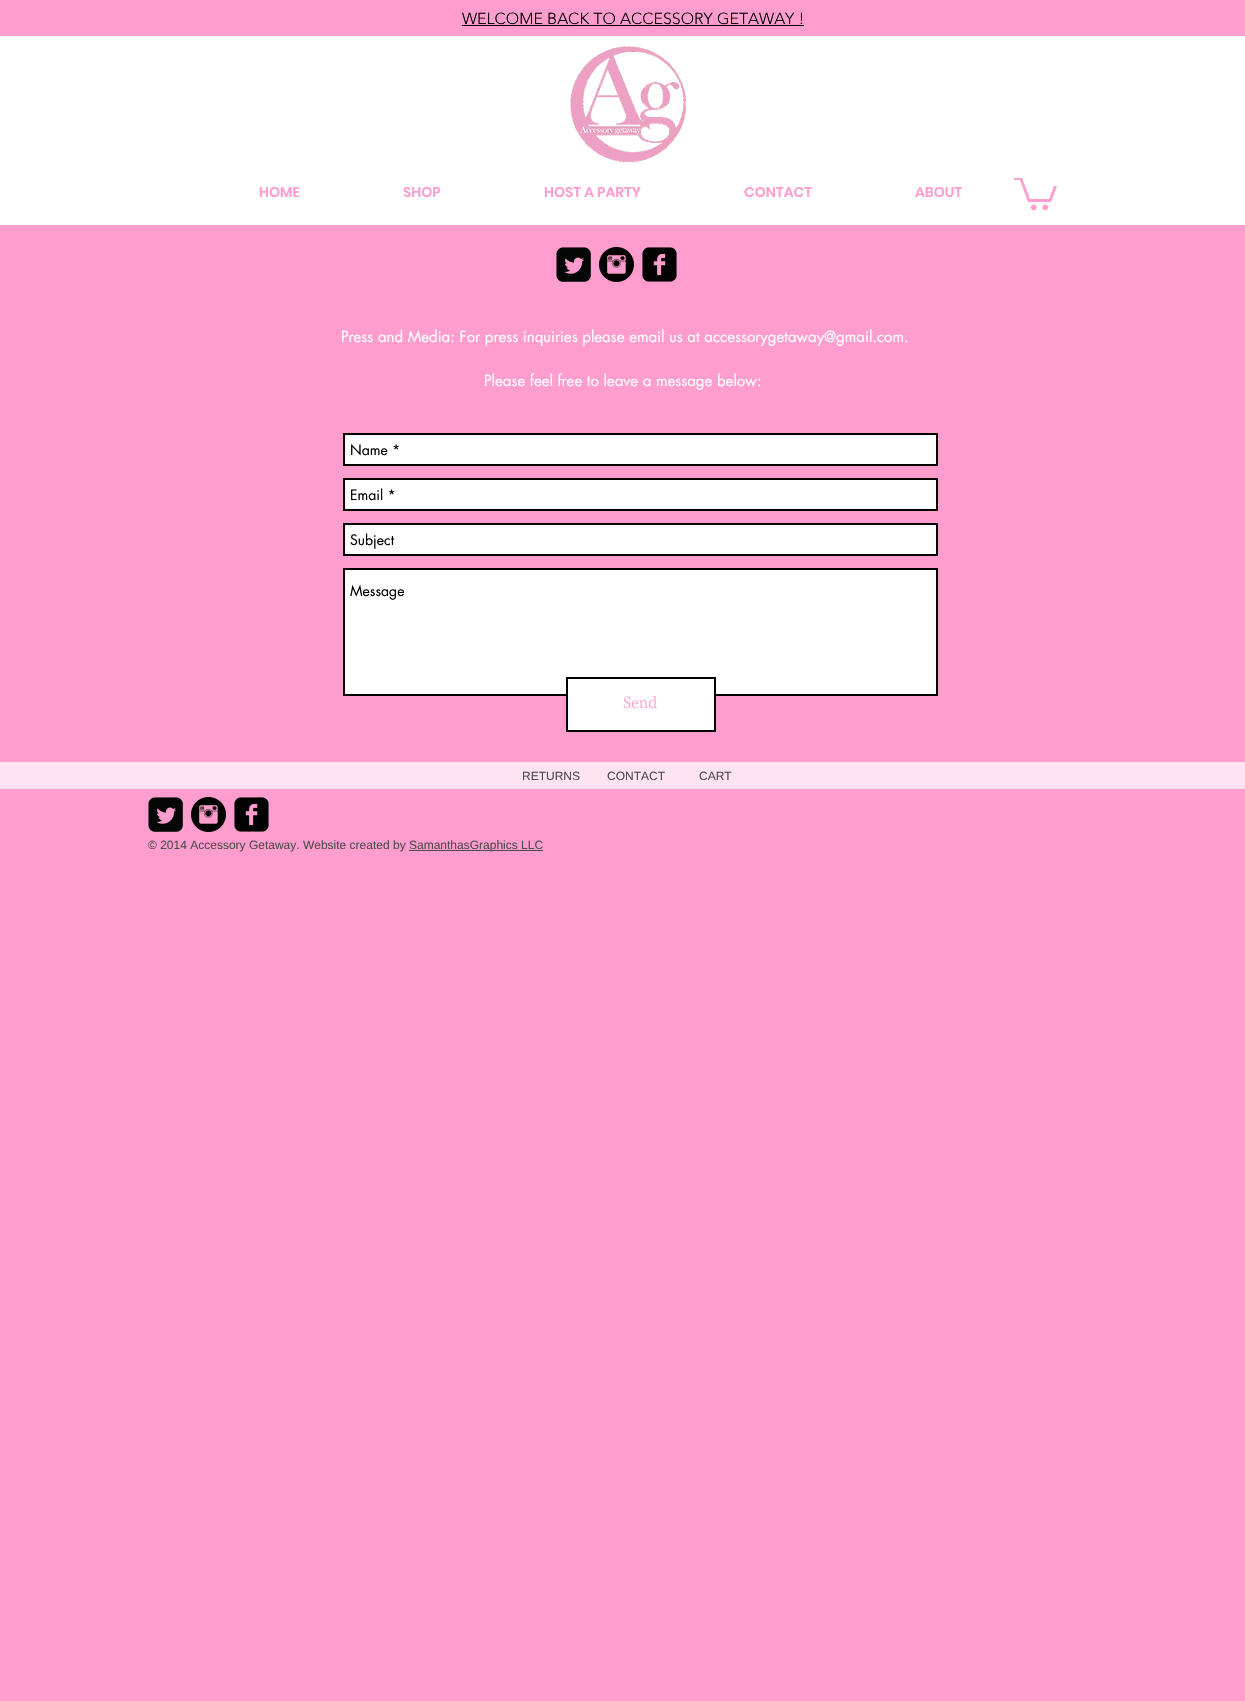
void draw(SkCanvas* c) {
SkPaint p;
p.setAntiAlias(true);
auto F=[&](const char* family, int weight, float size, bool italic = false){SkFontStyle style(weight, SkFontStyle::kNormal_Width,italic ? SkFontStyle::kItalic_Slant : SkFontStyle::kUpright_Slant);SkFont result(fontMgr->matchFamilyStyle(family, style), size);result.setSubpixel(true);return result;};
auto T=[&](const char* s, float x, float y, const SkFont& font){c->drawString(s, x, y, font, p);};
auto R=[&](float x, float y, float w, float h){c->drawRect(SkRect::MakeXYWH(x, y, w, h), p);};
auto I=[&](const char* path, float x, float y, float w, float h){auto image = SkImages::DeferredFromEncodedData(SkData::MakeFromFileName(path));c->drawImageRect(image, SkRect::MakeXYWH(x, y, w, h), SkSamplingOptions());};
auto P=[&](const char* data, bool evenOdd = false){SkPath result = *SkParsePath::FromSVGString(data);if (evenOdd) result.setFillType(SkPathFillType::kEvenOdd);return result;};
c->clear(0xffff9ece);
auto f1 = F("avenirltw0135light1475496",300,16);
p.setColor(0xff000000);
T("WELCOME BACK TO ACCESSORY GETAWAY !",462,24,f1);
R(462,25,342,1);
p.setColor(0xffffffff);
R(0,36,1245,189);
I("1.png",570,46,117,117);
auto f2 = F("Poppins",600,14);
p.setColor(0xffff9ece);
T("HOME",259,197,f2);
T("SHOP",403,197,f2);
T("HOST A PARTY",544,197,f2);
T("CONTACT",744,197,f2);
T("ABOUT",915,197,f2);
c->drawPath(P("M1057 186l-6 16h-23l-8-22h-6v-2h8l8 21h19l5-13"),p);
c->drawCircle(1045.3,207.3,2.8,p);
c->drawCircle(1033.7,207.3,2.8,p);
I("2.png",556,247,35,35);
I("3.png",599,247,35,35);
I("4.png",642,247,35,35);
auto f3 = F("futura",400,15);
p.setColor(0xffffffff);
T("Press and Media: For press inquiries please email us at accessorygetaway@gmail.com.",341,342,f3);
T("Please feel free to leave a message below:",484,386,f3);
c->drawRect(SkRect::MakeXYWH(344,434,593,31),p);
p.setStroke(true);
p.setStrokeWidth(2);
p.setColor(0xff000000);
c->drawRect(SkRect::MakeXYWH(344,434,593,31),p);
auto f4 = F("futura",400,14);
p.setStroke(false);
T("Name *",350,455,f4);
p.setColor(0xffffffff);
c->drawRect(SkRect::MakeXYWH(344,479,593,31),p);
p.setStroke(true);
p.setColor(0xff000000);
c->drawRect(SkRect::MakeXYWH(344,479,593,31),p);
p.setStroke(false);
T("Email *",350,500,f4);
p.setColor(0xffffffff);
c->drawRect(SkRect::MakeXYWH(344,524,593,31),p);
p.setStroke(true);
p.setColor(0xff000000);
c->drawRect(SkRect::MakeXYWH(344,524,593,31),p);
p.setStroke(false);
T("Subject",350,545,f4);
p.setColor(0xffffffff);
c->drawRect(SkRect::MakeXYWH(344,569,593,126),p);
p.setStroke(true);
p.setColor(0xff000000);
c->drawRect(SkRect::MakeXYWH(344,569,593,126),p);
p.setStroke(false);
T("Message",350,596,f4);
p.setColor(0xffffffff);
R(568,694,146,36);
p.setStroke(true);
p.setColor(0xff000000);
c->drawRect(SkRect::MakeXYWH(567,678,148,53),p);
I("5.png",623,696,34,13);
p.setStroke(false);
p.setColor(0xffffe3f1);
R(0,762,1245,27);
auto f5 = F("Liberation Sans",400,12);
p.setColor(0xff4c4c4c);
T("RETURNS",522,780,f5);
T("CONTACT",607,780,f5);
T("CART",699,780,f5);
I("2.png",148,797,35,35);
I("3.png",191,797,35,35);
I("4.png",234,797,35,35);
T("© 2014 Accessory Getaway. Website created by",148,849,f5);
R(409,850,134,1);
T("SamanthasGraphics LLC",409,849,f5);
}
